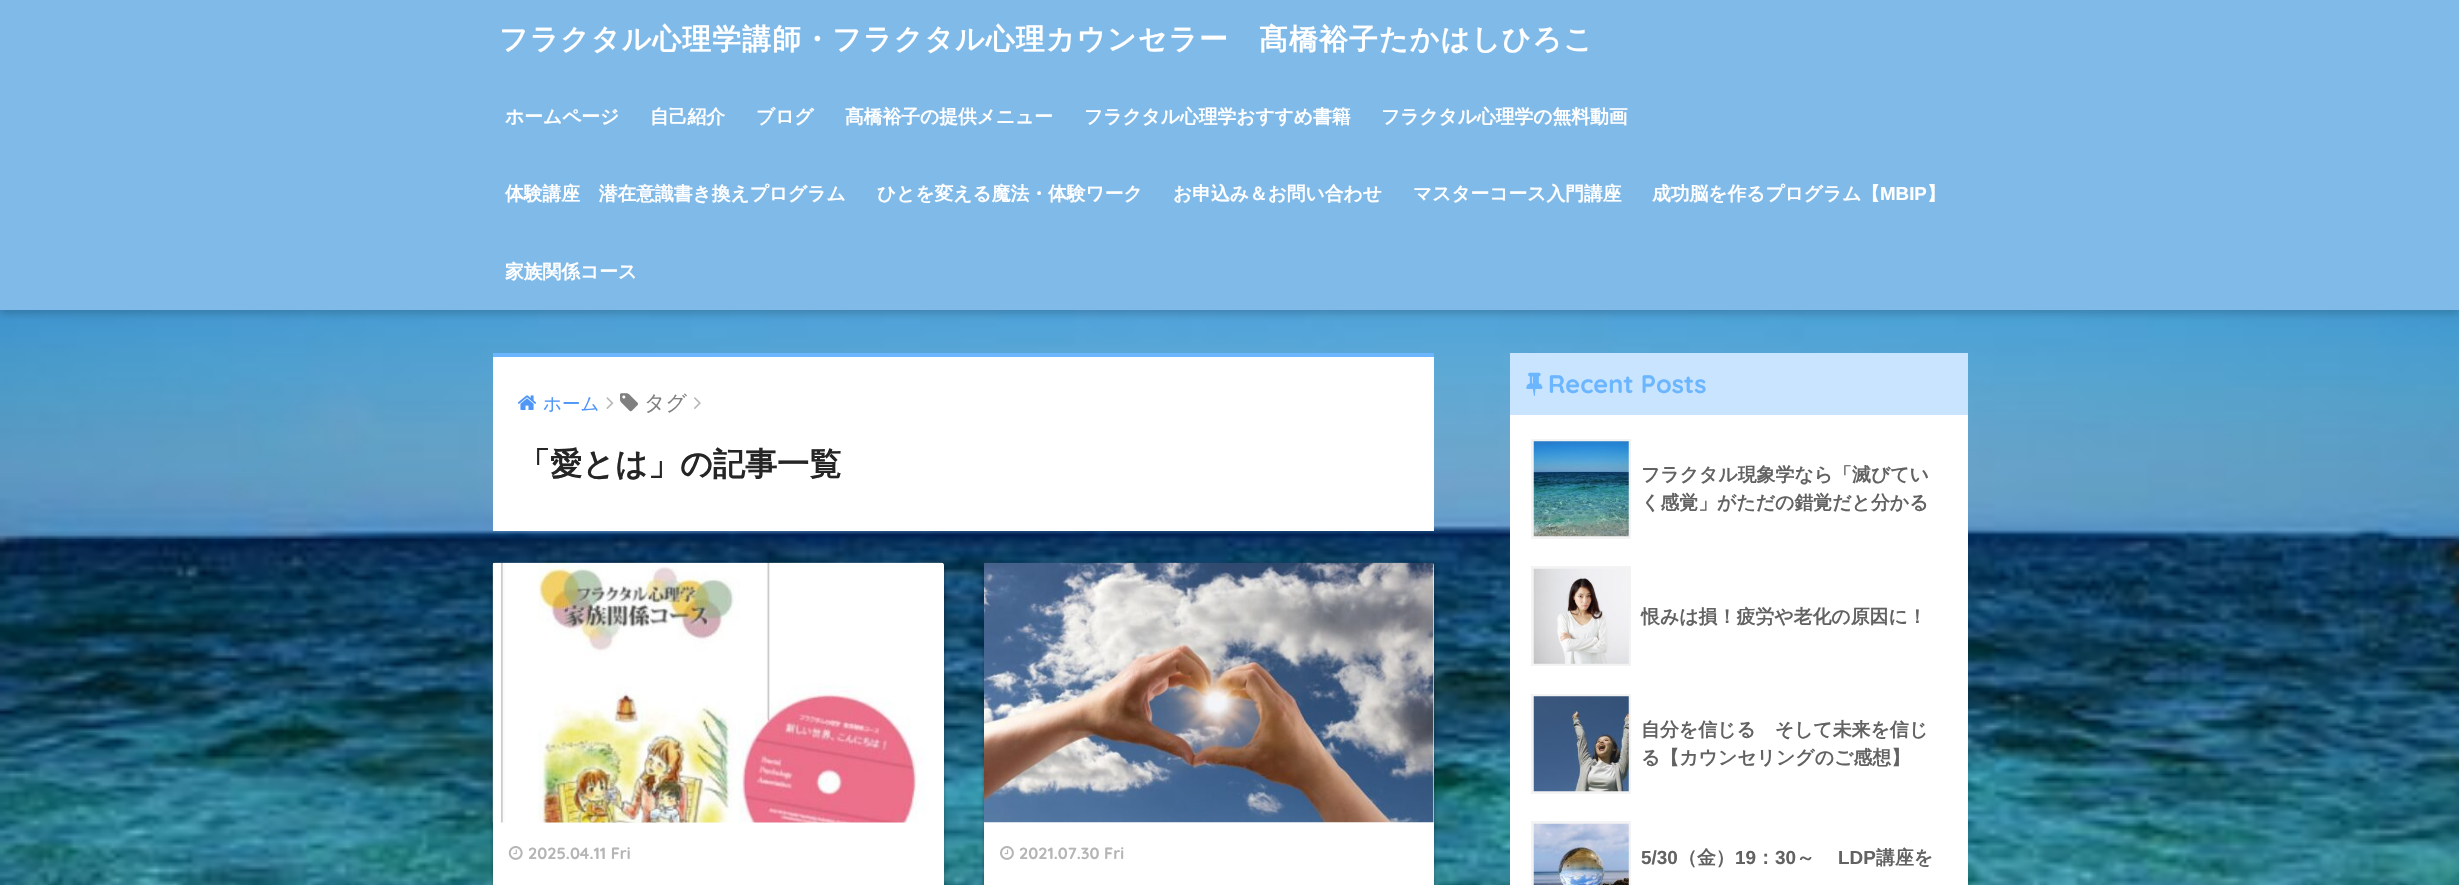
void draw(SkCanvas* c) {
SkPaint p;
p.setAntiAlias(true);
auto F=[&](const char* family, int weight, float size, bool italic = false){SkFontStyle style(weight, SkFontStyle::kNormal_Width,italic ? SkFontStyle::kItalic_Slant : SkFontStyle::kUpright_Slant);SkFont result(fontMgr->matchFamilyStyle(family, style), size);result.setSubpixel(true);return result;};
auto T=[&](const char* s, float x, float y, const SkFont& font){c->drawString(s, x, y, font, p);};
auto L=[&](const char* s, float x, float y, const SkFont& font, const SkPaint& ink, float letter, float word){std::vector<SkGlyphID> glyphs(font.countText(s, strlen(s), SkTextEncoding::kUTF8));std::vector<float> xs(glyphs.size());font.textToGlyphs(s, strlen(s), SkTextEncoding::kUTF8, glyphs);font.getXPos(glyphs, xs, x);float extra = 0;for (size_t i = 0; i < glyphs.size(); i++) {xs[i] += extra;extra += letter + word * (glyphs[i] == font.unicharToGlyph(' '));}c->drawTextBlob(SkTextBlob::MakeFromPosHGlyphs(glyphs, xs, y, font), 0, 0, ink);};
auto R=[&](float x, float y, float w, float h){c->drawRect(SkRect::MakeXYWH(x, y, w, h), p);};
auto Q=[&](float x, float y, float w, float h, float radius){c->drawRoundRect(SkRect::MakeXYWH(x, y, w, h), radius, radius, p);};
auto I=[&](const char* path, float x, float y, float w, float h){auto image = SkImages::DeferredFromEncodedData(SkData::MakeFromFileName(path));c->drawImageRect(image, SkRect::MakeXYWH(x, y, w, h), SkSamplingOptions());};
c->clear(0xffffffff);
I("1.png",0,310,2459,575);
p.setColor(0x2e000000);
p.setMaskFilter(SkMaskFilter::MakeBlur(kNormal_SkBlurStyle, 4));
c->drawRect(SkRect::MakeXYWH(0,4,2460,310),p);
p.setMaskFilter(nullptr);
p.setColor(0xff7fbae9);
R(0,0,2459,310);
auto f1 = F("WenQuanYi Zen Hei",700,28.75);
p.setColor(0xffffffff);
L("フラクタル心理学講師・フラクタル心理カウンセラー　髙橋裕子たかはしひろこ",499,49,f1,p,1.25,0);
auto f2 = F("WenQuanYi Zen Hei",700,18.75);
T("ホームページ",505,123,f2);
T("自己紹介",650,123,f2);
T("ブログ",756,123,f2);
T("髙橋裕子の提供メニュー",845,123,f2);
T("フラクタル心理学おすすめ書籍",1084,123,f2);
T("フラクタル心理学の無料動画",1381,123,f2);
T("体験講座　潜在意識書き換えプログラム",505,200,f2);
T("ひとを変える魔法・体験ワーク",877,200,f2);
T("お申込み＆お問い合わせ",1173,200,f2);
T("マスターコース入門講座",1413,200,f2);
T("成功脳を作るプログラム【",1652,200,f2);
auto f3 = F("Liberation Sans",700,18.75);
T("MBIP",1880,200,f3);
T("】",1927,200,f2);
T("家族関係コース",505,278,f2);
R(493,357,941,174);
p.setColor(0xff6bb6ff);
R(493,353,941,4);
I("2.png",517,395,20,15);
auto f4 = F("WenQuanYi Zen Hei",500,18.5);
p.setColor(0xff4f96f6);
T("ホーム",543,410,f4);
I("3.png",606,397,8,12);
I("4.png",620,393,18,19);
auto f5 = F("WenQuanYi Zen Hei",500,21);
p.setColor(0xff808080);
T("タグ",644,410,f5);
I("5.png",694,397,7,12);
auto f6 = F("WenQuanYi Zen Hei",700,32.1);
p.setColor(0xff252525);
T("「愛とは」の記事一覧",518,475,f6);
p.setColor(0x38000000);
p.setMaskFilter(SkMaskFilter::MakeBlur(kNormal_SkBlurStyle, 2));
c->drawRoundRect(SkRect::MakeXYWH(493,565,451,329),2.5,2.5,p);
p.setMaskFilter(nullptr);
p.setColor(0x1f000000);
p.setMaskFilter(SkMaskFilter::MakeBlur(kNormal_SkBlurStyle, 2));
c->drawRoundRect(SkRect::MakeXYWH(493,563,451,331),2.5,2.5,p);
p.setMaskFilter(nullptr);
p.setColor(0xffffffff);
Q(493,563,451,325,2.5);
I("6.png",492,562,452,261);
I("7.png",508,846,15,14);
auto f7 = F("Quicksand",700,16.25);
p.setColor(0xffb5b5b5);
T("2025.04.11 Fri",528,859,f7);
p.setColor(0x38000000);
p.setMaskFilter(SkMaskFilter::MakeBlur(kNormal_SkBlurStyle, 2));
c->drawRoundRect(SkRect::MakeXYWH(984,565,450,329),2.5,2.5,p);
p.setMaskFilter(nullptr);
p.setColor(0x1f000000);
p.setMaskFilter(SkMaskFilter::MakeBlur(kNormal_SkBlurStyle, 2));
c->drawRoundRect(SkRect::MakeXYWH(984,563,450,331),2.5,2.5,p);
p.setMaskFilter(nullptr);
p.setColor(0xffffffff);
Q(984,563,450,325,2.5);
I("8.png",984,562,450,261);
I("9.png",1000,846,14,14);
p.setColor(0xffb5b5b5);
T("2021.07.30 Fri",1019,859,f7);
p.setColor(0xffffffff);
R(1510,415,458,470);
p.setColor(0xffc8e4ff);
R(1510,353,458,62);
I("10.png",1526,372,17,24);
auto f8 = F("Quicksand",700,25.25);
p.setColor(0xff6bb6ff);
T("Recent Posts",1548,393,f8);
p.setStroke(true);
p.setStrokeWidth(3);
p.setColor(0xfff3f3f3);
c->drawRect(SkRect::MakeXYWH(1532.5,440.5,97,97),p);
I("11.png",1533,441,96,96);
auto f9 = F("WenQuanYi Zen Hei",700,18.9);
p.setStroke(false);
p.setColor(0xff626262);
T("フラクタル現象学なら「滅びてい",1641,481,f9);
T("く感覚」がただの錯覚だと分かる",1641,509,f9);
p.setStroke(true);
p.setColor(0xfff3f3f3);
c->drawRect(SkRect::MakeXYWH(1532.5,567.5,97,97),p);
I("12.png",1533,568,96,96);
p.setStroke(false);
p.setColor(0xff626262);
T("恨みは損！疲労や老化の原因に！",1641,623,f9);
p.setStroke(true);
p.setColor(0xfff3f3f3);
c->drawRect(SkRect::MakeXYWH(1532.5,695.5,97,97),p);
I("13.png",1533,696,96,96);
p.setStroke(false);
p.setColor(0xff626262);
T("自分を信じる　そして未来を信じ",1641,736,f9);
T("る【カウンセリングのご感想】",1641,764,f9);
p.setStroke(true);
p.setColor(0xfff3f3f3);
c->drawRect(SkRect::MakeXYWH(1532.5,822.5,97,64),p);
I("14.png",1533,823,96,62);
auto f10 = F("Liberation Sans",700,18.9);
p.setStroke(false);
p.setColor(0xff626262);
T("5/30",1641,864,f10);
T("（金）",1678,864,f9);
T("19",1735,864,f10);
T("：",1756,864,f9);
T("30",1775,864,f10);
T("～",1796,864,f9);
T("LDP",1838,864,f10);
T("講座を",1876,864,f9);
}
